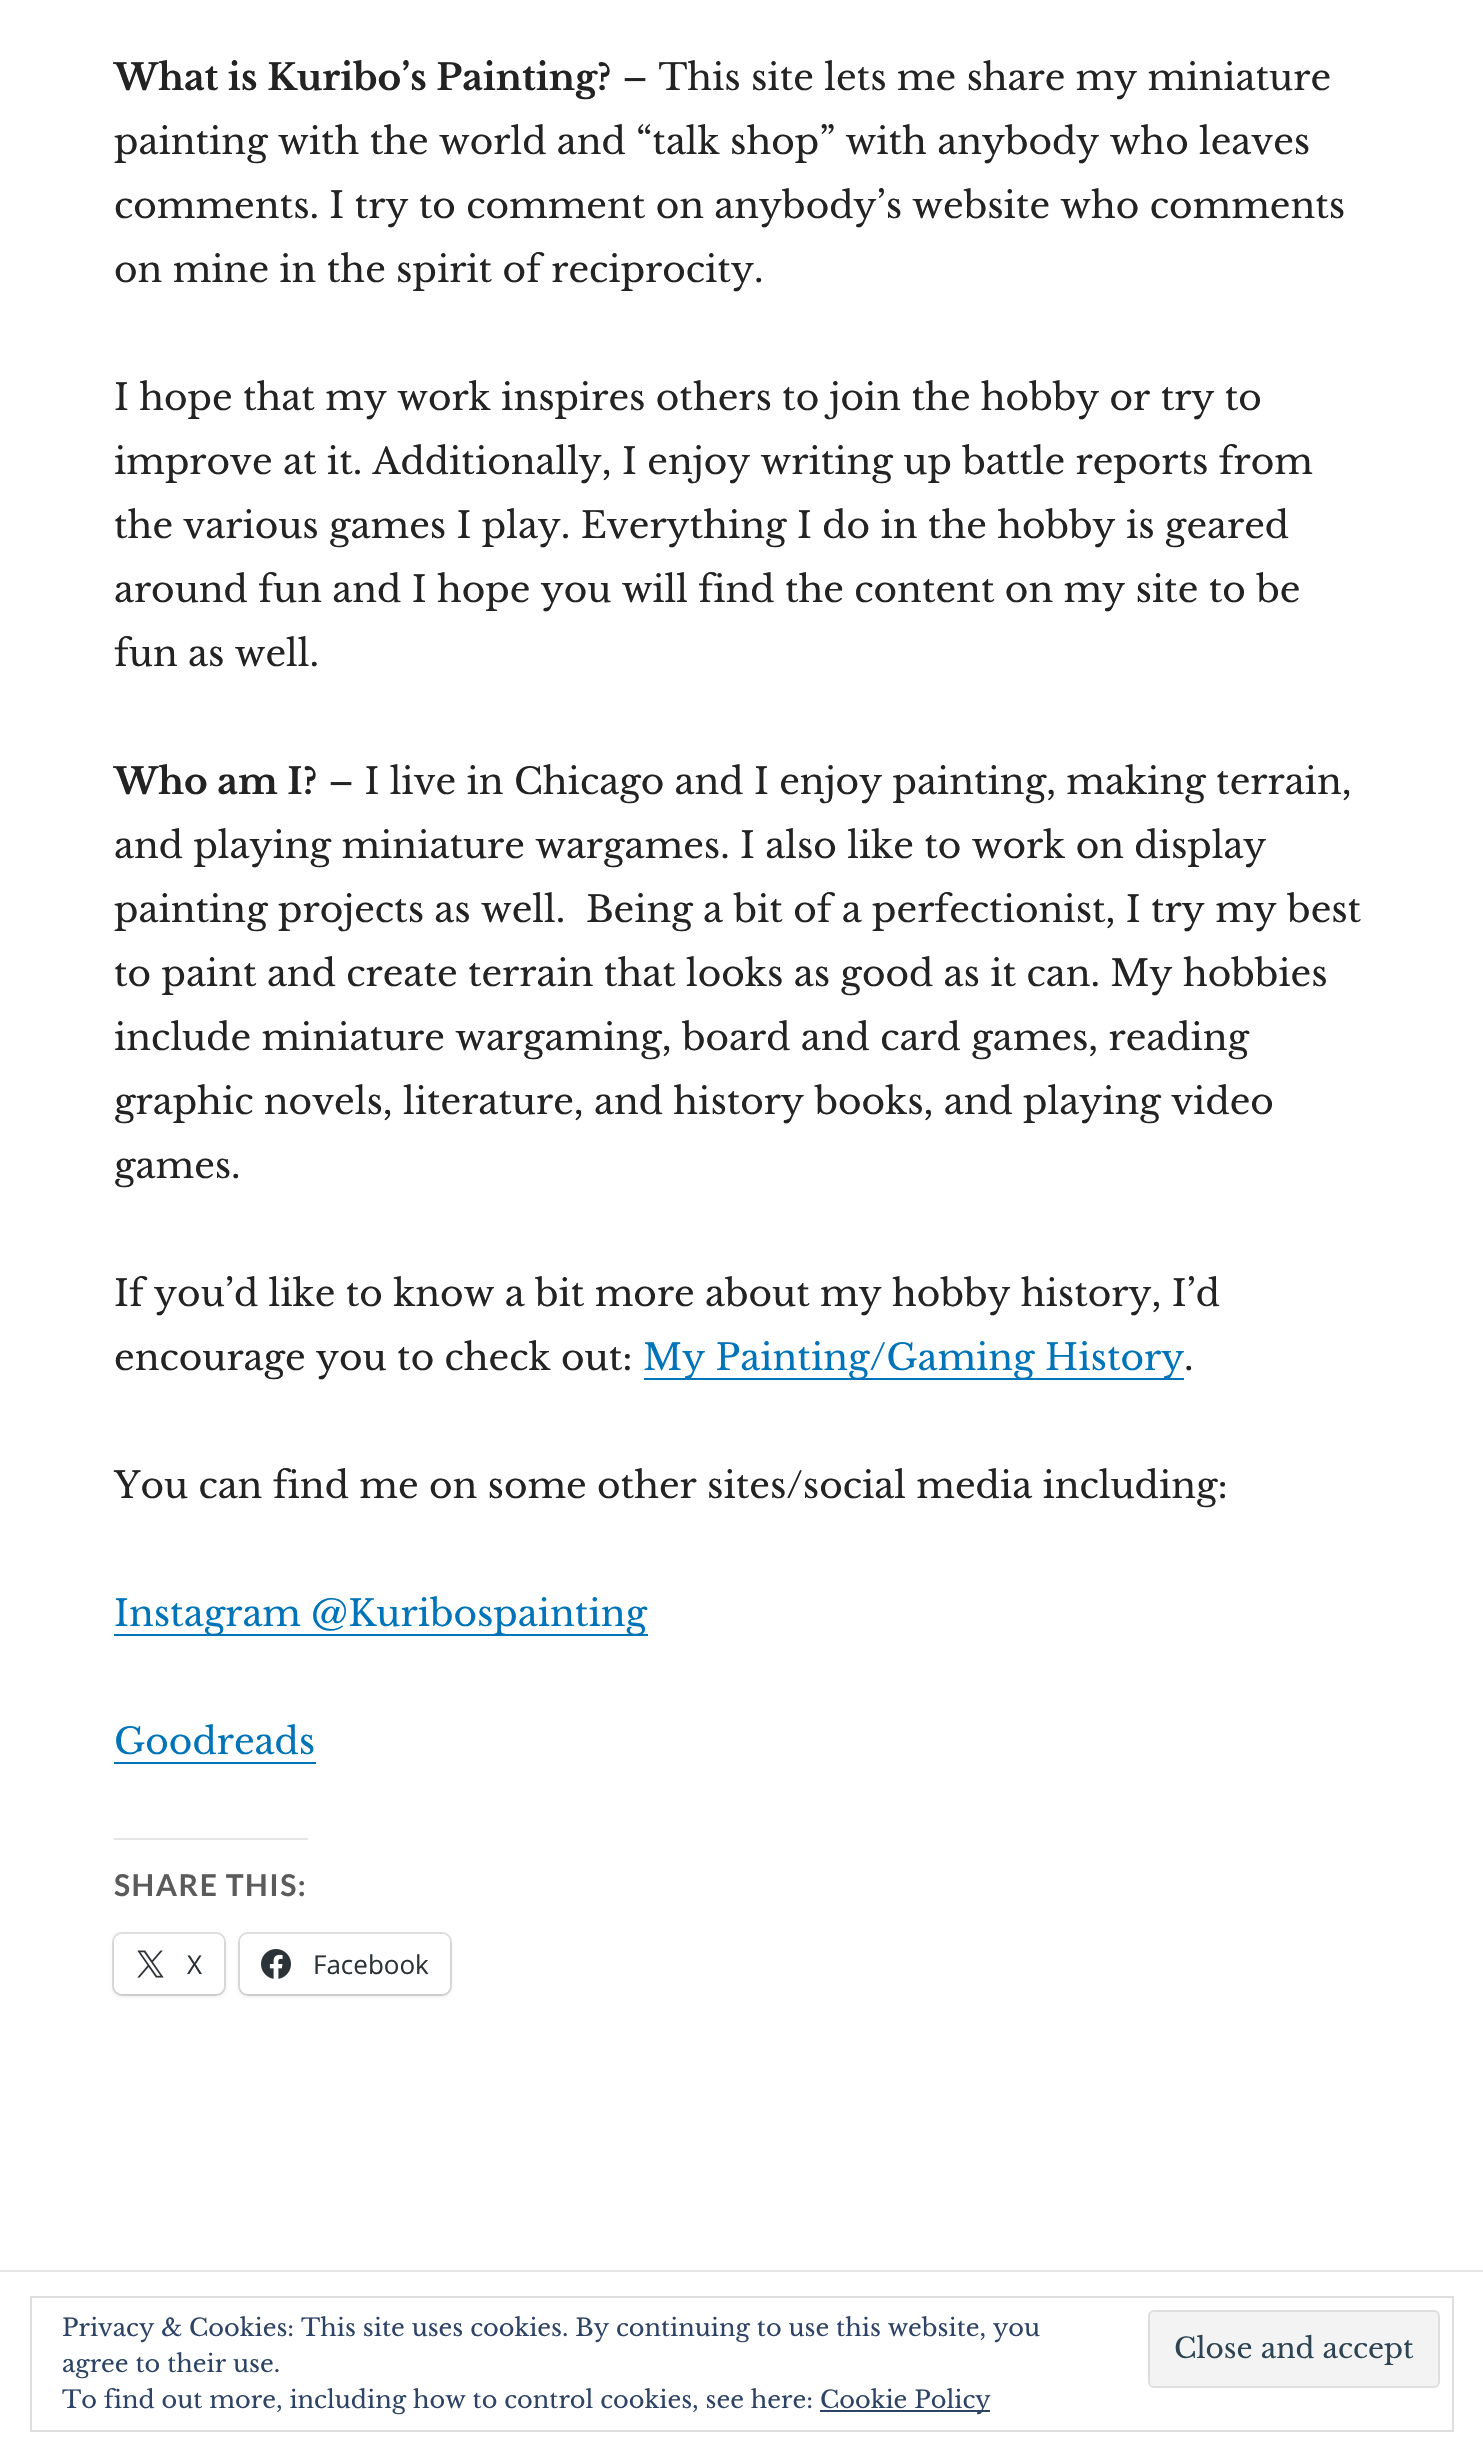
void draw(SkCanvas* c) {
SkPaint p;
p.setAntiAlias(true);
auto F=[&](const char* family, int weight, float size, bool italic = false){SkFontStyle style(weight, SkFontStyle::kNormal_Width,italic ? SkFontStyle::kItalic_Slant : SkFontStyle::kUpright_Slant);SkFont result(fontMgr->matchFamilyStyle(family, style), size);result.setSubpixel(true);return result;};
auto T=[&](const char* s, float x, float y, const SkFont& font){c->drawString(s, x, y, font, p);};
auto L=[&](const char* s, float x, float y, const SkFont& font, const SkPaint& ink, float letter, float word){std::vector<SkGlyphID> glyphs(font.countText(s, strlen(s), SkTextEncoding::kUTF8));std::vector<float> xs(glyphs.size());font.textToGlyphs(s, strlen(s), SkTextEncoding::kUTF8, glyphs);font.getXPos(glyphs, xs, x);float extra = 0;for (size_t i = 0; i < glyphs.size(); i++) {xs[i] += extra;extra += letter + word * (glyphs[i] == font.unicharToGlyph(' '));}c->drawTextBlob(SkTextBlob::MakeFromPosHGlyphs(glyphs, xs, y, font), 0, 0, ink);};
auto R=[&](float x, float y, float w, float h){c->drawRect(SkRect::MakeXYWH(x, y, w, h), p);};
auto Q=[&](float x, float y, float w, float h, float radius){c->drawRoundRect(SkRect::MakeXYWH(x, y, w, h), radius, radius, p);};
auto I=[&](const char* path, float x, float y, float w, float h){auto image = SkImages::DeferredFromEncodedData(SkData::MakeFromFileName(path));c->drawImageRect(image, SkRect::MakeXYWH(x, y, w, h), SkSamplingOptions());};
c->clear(0xffffffff);
auto f1 = F("Libre Baskerville",700,36);
p.setColor(0xff232323);
T("What is Kuribo’s Painting?",114,90,f1);
auto f2 = F("Libre Baskerville",400,36);
T("– This site lets me share my miniature",622,90,f2);
T("painting with the world and “talk shop” with anybody who leaves",114,154,f2);
T("comments. I try to comment on anybody’s website who comments",114,218,f2);
T("on mine in the spirit of reciprocity.",114,282,f2);
T("I hope that my work inspires others to join the hobby or try to",114,410,f2);
T("improve at it. Additionally, I enjoy writing up battle reports from",114,474,f2);
T("the various games I play. Everything I do in the hobby is geared",114,538,f2);
T("around fun and I hope you will find the content on my site to be",114,602,f2);
T("fun as well.",114,666,f2);
T("Who am I?",114,794,f1);
T("– I live in Chicago and I enjoy painting, making terrain,",328,794,f2);
T("and playing miniature wargames. I also like to work on display",114,858,f2);
T("painting projects as well.  Being a bit of a perfectionist, I try my best",114,922,f2);
T("to paint and create terrain that looks as good as it can. My hobbies",114,986,f2);
T("include miniature wargaming, board and card games, reading",114,1050,f2);
T("graphic novels, literature, and history books, and playing video",114,1114,f2);
T("games.",114,1178,f2);
T("If you’d like to know a bit more about my hobby history, I’d",114,1306,f2);
T("encourage you to check out:",114,1370,f2);
p.setColor(0xff0074b8);
R(644,1378,540,2);
T("My Painting/Gaming History",643,1370,f2);
p.setColor(0xff232323);
T(".",1184,1370,f2);
T("You can find me on some other sites/social media including:",114,1498,f2);
p.setColor(0xff0074b8);
R(114,1634,534,2);
T("Instagram @Kuribospainting",114,1626,f2);
T("Goodreads",114,1754,f2);
R(114,1762,202,2);
p.setColor(0xffe6e6e6);
R(114,1838,194,2);
auto f3 = F("Lato",700,30);
p.setColor(0xff5b5b5b);
L("SHARE THIS:",114,1896,f3,p,1.5,0);
p.setStroke(true);
p.setStrokeWidth(2);
p.setColor(0xffe0e0e0);
c->drawRoundRect(SkRect::MakeXYWH(113,1933,112,62),9,9,p);
p.setStroke(false);
p.setColor(0x1f000000);
p.setMaskFilter(SkMaskFilter::MakeBlur(kNormal_SkBlurStyle, 2));
c->drawRoundRect(SkRect::MakeXYWH(114,1936,110,60),8,8,p);
p.setMaskFilter(nullptr);
p.setColor(0xffffffff);
Q(114,1934,110,60,8);
I("1.png",137,1950,27,28);
auto f4 = F("Open Sans",400,26);
p.setColor(0xff2c3338);
T("X",187,1974,f4);
p.setStroke(true);
p.setColor(0xffe0e0e0);
c->drawRoundRect(SkRect::MakeXYWH(239,1933,212,62),9,9,p);
p.setStroke(false);
p.setColor(0x1f000000);
p.setMaskFilter(SkMaskFilter::MakeBlur(kNormal_SkBlurStyle, 2));
c->drawRoundRect(SkRect::MakeXYWH(240,1936,210,60),8,8,p);
p.setMaskFilter(nullptr);
p.setColor(0xffffffff);
Q(240,1934,210,60,8);
I("2.png",261,1949,30,30);
p.setColor(0xff2c3338);
T("Facebook",313,1974,f4);
p.setColor(0xffe6e6e6);
R(0,2270,1483,2);
p.setStroke(true);
p.setColor(0xffdedede);
c->drawRect(SkRect::MakeXYWH(31,2297,1422,134),p);
auto f5 = F("Libre Baskerville",400,24);
p.setStroke(false);
p.setColor(0xff2e4467);
T("Privacy & Cookies: This site uses cookies. By continuing to use this website, you",62,2336,f5);
T("agree to their use.",62,2372,f5);
p.setColor(0xfff3f3f3);
c->drawRoundRect(SkRect::MakeXYWH(1149,2311,290,76),5,5,p);
p.setStroke(true);
p.setColor(0xffdedede);
c->drawRoundRect(SkRect::MakeXYWH(1149,2311,290,76),5,5,p);
auto f6 = F("Libre Baskerville",400,28);
p.setStroke(false);
p.setColor(0xff2e4453);
T("Close and accept",1174,2358,f6);
p.setColor(0xff2e4467);
T("To find out more, including how to control cookies, see here:",62,2408,f5);
R(820,2410,170,2);
T("Cookie Policy",820,2408,f5);
}
